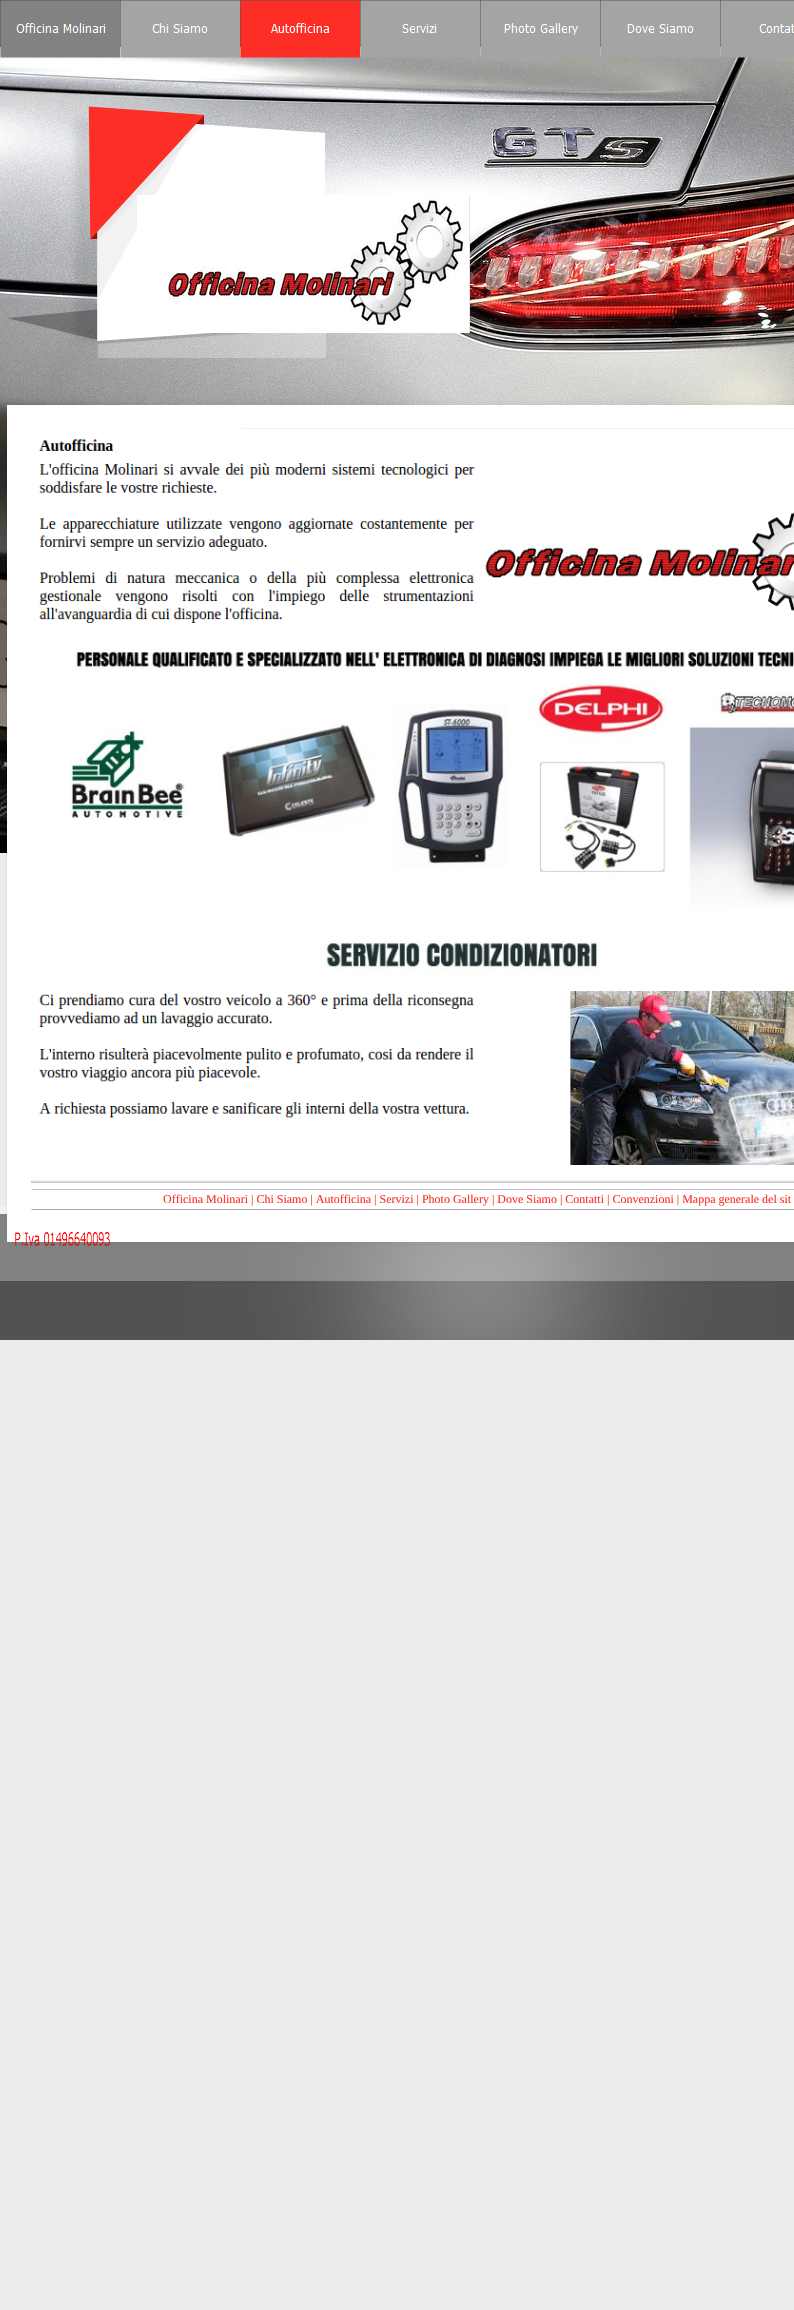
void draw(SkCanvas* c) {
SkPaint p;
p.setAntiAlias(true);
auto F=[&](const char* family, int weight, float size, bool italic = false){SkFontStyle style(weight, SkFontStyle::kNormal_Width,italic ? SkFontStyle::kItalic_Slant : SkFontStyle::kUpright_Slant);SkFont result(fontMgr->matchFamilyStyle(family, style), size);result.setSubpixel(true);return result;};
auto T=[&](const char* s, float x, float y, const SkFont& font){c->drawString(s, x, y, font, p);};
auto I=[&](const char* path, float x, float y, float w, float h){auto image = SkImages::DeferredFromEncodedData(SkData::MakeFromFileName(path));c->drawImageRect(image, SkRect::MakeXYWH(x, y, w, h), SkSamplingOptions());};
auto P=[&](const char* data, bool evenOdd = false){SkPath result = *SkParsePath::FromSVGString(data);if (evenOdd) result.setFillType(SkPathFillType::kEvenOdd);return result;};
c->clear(0xffedecec);
I("1.png",0,47,794,806);
I("2.png",0,0,794,56);
I("3.png",0,0,120,58);
I("4.png",120,0,120,58);
I("5.png",240,0,120,58);
I("6.png",360,0,120,58);
I("7.png",480,0,120,58);
I("8.png",600,0,120,58);
I("9.png",720,0,74,58);
I("10.png",7,106,787,311);
I("14.png",0,1206,794,134);
I("11.png",5,417,789,798);
I("12.png",31,428,763,755);
p.setColor(0xffc0c0c0);
c->drawPath(P("M31 1189h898l-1 1h-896z"),p);
p.setColor(0xffa9a9a9);
c->drawPath(P("M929 1210h-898l1-1h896z"),p);
auto f1 = F("Liberation Serif",400,12);
p.setColor(0xfffd2e26);
T("Officina Molinari | Chi Siamo | Autofficina | Servizi | Photo Gallery | Dove Siamo | Contatti | Convenzioni | Mappa generale del sit",163,1203,f1);
I("13.png",6,1215,788,125);
}
